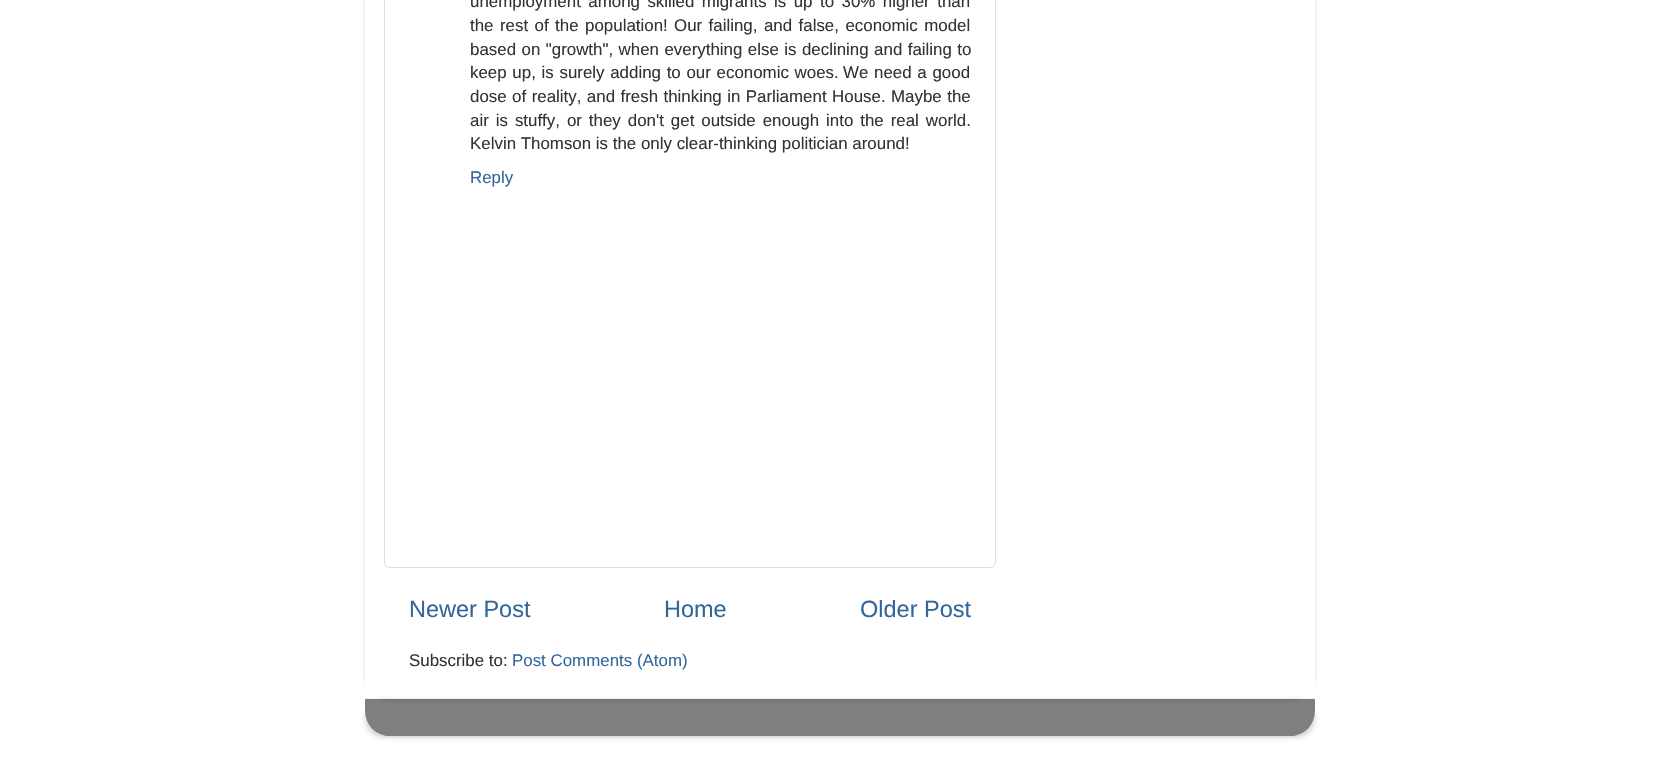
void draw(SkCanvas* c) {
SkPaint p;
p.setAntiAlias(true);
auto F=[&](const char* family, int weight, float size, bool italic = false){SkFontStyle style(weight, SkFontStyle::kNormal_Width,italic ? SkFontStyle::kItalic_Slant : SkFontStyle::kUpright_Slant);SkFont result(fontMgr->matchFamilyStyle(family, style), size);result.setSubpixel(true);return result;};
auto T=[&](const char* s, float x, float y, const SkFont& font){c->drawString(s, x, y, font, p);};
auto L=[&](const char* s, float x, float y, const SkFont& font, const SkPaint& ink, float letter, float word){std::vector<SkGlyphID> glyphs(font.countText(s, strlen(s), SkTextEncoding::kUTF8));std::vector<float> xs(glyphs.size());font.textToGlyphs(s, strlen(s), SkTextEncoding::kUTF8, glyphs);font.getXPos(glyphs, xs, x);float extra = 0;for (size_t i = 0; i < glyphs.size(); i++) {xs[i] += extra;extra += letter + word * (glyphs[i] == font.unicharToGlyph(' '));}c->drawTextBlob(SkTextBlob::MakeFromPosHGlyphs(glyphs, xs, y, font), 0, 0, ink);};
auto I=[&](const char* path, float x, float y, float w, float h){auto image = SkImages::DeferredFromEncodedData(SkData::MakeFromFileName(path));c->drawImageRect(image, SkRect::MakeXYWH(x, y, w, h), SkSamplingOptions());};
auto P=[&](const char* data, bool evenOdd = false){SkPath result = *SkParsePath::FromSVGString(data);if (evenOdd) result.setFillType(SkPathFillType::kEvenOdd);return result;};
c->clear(0xffffffff);
c->save();
c->clipPath(P("M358 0h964v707h-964zm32-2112h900c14 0 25 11 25 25v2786h-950v-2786c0-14 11-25 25-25z",true),true);
p.setColor(0x26000000);
p.setMaskFilter(SkMaskFilter::MakeBlur(kNormal_SkBlurStyle, 2));
c->drawRoundRect(SkRect::MakeXYWH(365,-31,950,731),25,25,p);
p.setMaskFilter(nullptr);
c->restore();
p.setStroke(true);
p.setStrokeWidth(1);
p.setColor(0xffdddddd);
c->drawRoundRect(SkRect::MakeXYWH(384.5,-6.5,611,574),5.5,5.5,p);
auto f1 = F("Liberation Sans",400,16.9);
p.setStroke(false);
p.setColor(0xff333333);
L("unemployment among skilled migrants is up to 30% higher than",470,7,f1,p,0,2.75);
L("the rest of the population!",470,31,f1,p,0,1.75);
L("Our failing, and false, economic model",674,31,f1,p,0,1.75);
L("based on \"growth\", when everything else is declining and failing to",470,55,f1,p,0,.75);
L("keep up, is surely adding to our economic woes.",470,78,f1,p,0,1);
L("We need a good",843,78,f1,p,0,1);
L("dose of reality, and fresh thinking in Parliament House. Maybe the",470,102,f1,p,0,.75);
L("air is stuffy, or they don't get outside enough into the real world.",470,126,f1,p,0,2.25);
T("Kelvin Thomson is the only clear-thinking politician around!",470,149,f1);
p.setColor(0xff336699);
T("Reply",470,183,f1);
auto f2 = F("Liberation Sans",400,23.5);
T("Newer Post",409,617,f2);
T("Home",664,617,f2);
T("Older Post",860,617,f2);
p.setColor(0xff333333);
T("Subscribe to:",409,666,f1);
p.setColor(0xff336699);
T("Post Comments (Atom)",512,666,f1);
c->save();
c->clipPath(P("M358 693h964v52h-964zm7 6h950v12c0 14-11 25-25 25h-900c-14 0-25-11-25-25z",true),true);
p.setColor(0x26000000);
p.setMaskFilter(SkMaskFilter::MakeBlur(kNormal_SkBlurStyle, 2));
c->drawRoundRect(SkRect::MakeXYWH(365,700,950,38),25,25,p);
p.setMaskFilter(nullptr);
c->restore();
I("1.png",365,698,950,39);
}
